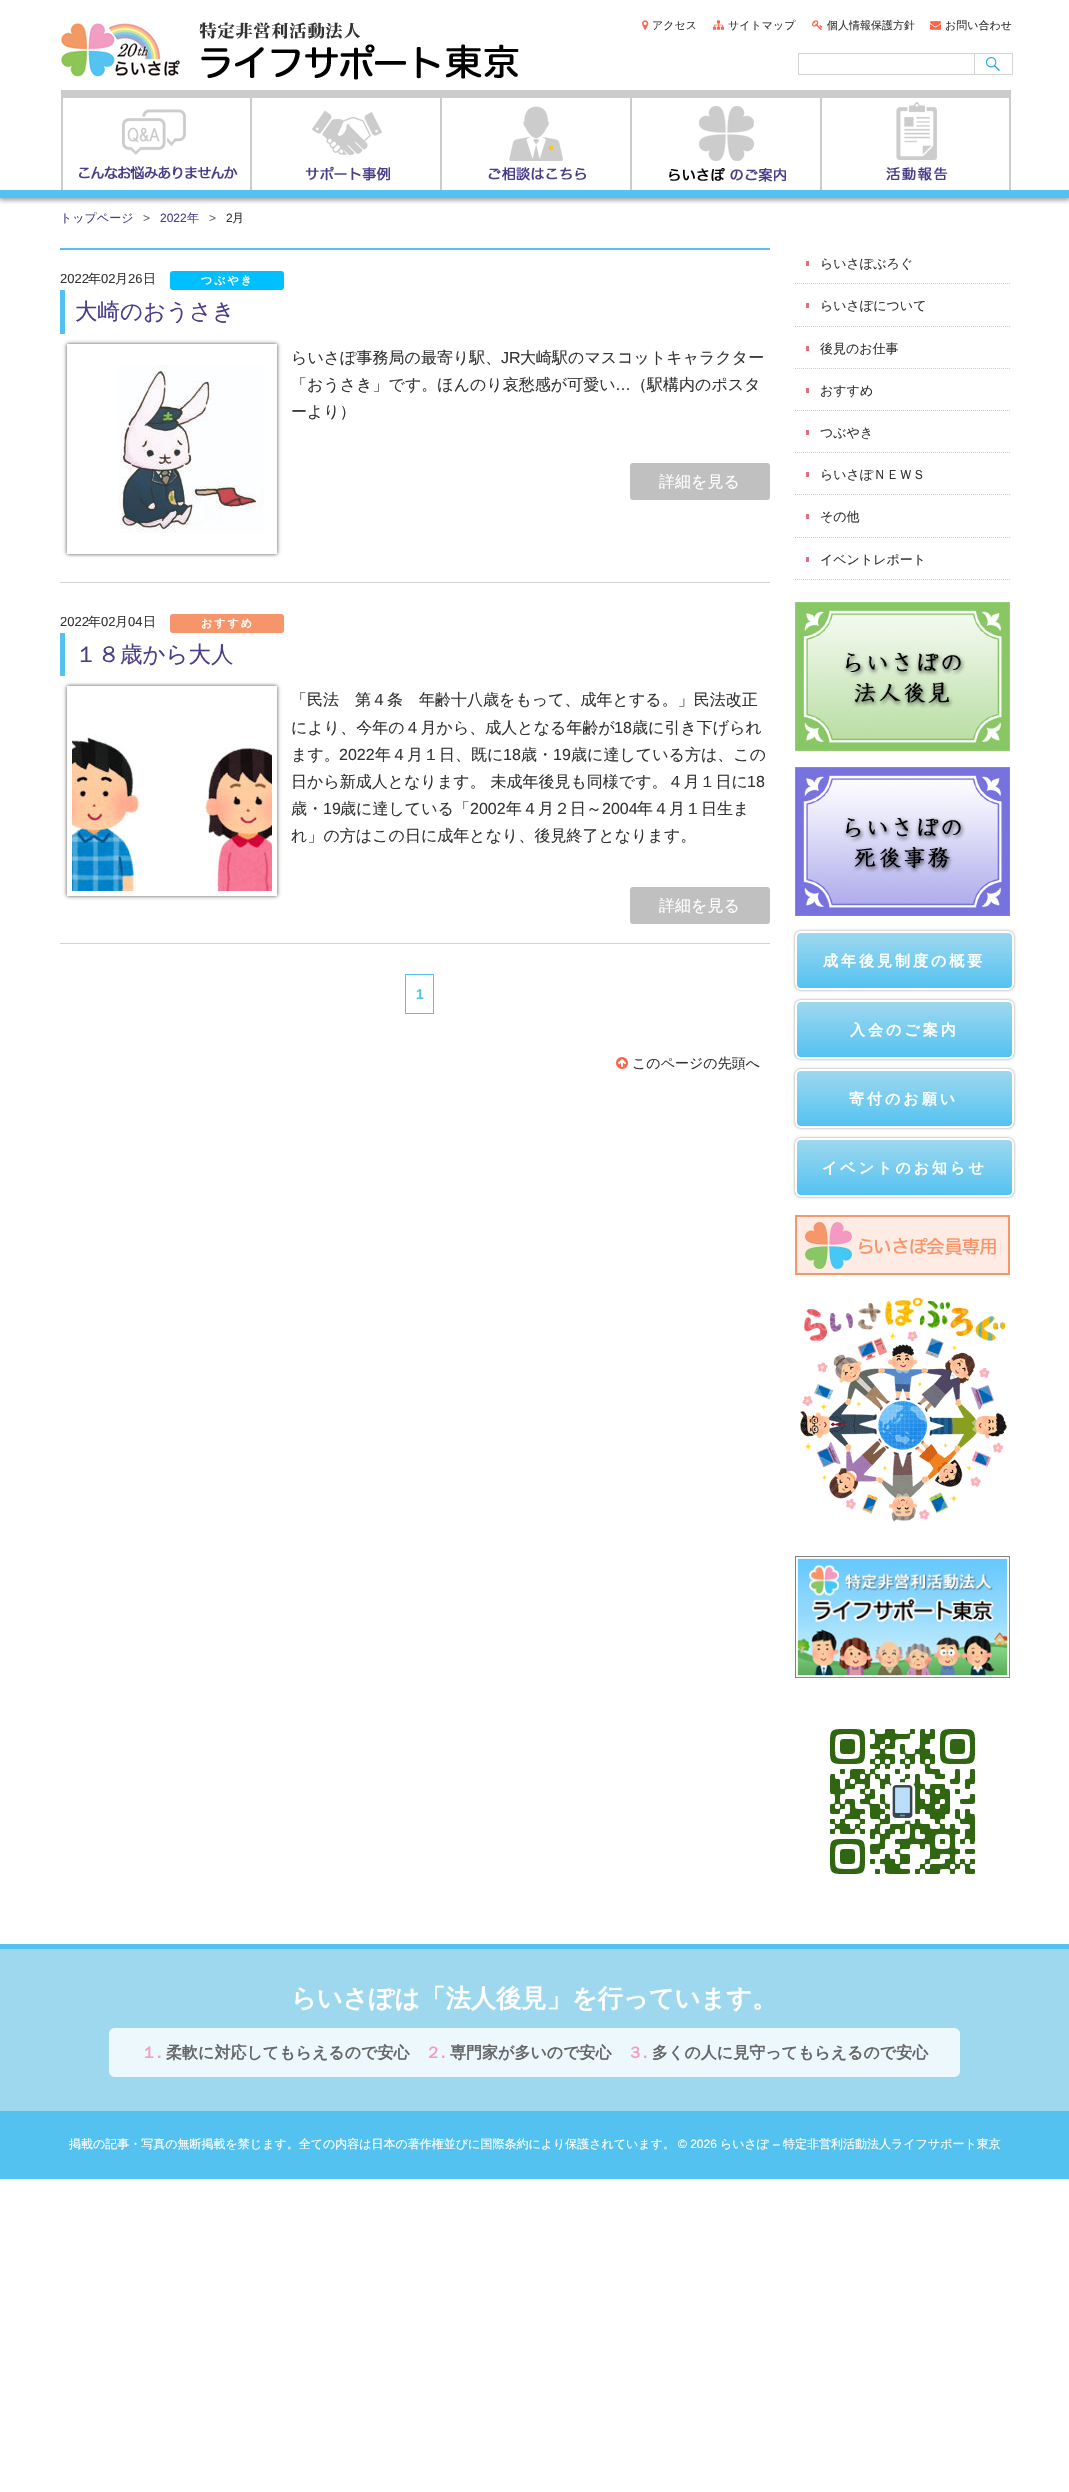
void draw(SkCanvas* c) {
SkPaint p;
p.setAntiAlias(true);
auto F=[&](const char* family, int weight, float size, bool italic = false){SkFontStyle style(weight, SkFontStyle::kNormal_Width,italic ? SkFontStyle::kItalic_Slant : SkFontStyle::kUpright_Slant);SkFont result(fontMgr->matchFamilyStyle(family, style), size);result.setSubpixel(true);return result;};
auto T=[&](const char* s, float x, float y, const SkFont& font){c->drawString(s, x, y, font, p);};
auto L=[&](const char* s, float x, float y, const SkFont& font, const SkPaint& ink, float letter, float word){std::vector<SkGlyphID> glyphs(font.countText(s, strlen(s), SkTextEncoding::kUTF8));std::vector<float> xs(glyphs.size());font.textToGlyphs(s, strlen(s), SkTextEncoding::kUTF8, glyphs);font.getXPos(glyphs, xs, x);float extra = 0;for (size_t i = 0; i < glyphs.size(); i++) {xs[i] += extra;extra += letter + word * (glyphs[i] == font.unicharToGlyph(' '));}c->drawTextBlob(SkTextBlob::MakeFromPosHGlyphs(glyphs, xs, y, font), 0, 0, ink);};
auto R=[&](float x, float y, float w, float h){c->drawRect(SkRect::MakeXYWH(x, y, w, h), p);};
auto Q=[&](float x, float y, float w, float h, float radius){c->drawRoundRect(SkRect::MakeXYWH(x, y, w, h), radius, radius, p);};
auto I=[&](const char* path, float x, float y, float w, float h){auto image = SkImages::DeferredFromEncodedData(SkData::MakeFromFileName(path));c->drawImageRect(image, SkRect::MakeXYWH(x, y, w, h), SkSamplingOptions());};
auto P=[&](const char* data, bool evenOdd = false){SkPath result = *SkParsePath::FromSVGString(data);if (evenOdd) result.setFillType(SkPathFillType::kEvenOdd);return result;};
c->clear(0xffffffff);
c->save();
c->clipRect(SkRect::MakeXYWH(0,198,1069,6));
p.setColor(0x66000000);
p.setMaskFilter(SkMaskFilter::MakeBlur(kNormal_SkBlurStyle, 2.5));
c->drawRect(SkRect::MakeXYWH(-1,0,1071,200),p);
p.setMaskFilter(nullptr);
c->restore();
p.setColor(0xff54c2f1);
R(0,190,1069,8);
I("1.png",61,22,458,58);
I("2.png",642,20,7,10);
auto f1 = F("WenQuanYi Zen Hei",500,11);
p.setColor(0xff333333);
T("アクセス",652,29,f1);
I("3.png",713,20,11,10);
T("サイトマップ",728,29,f1);
I("4.png",812,20,11,11);
T("個人情報保護方針",827,29,f1);
I("5.png",930,21,11,9);
T("お問い合わせ",945,29,f1);
p.setStroke(true);
p.setStrokeWidth(1);
p.setColor(0xffd4d4d4);
c->drawRect(SkRect::MakeXYWH(798.5,53.5,176,21),p);
I("6.png",986,57,14,14);
p.setStroke(false);
R(975,53,38,1);
R(1012,53,1,22);
R(975,74,38,1);
I("7.png",61,90,190,100);
I("8.png",251,90,190,100);
I("9.png",441,90,190,100);
I("10.png",631,90,190,100);
I("11.png",821,90,190,100);
auto f2 = F("WenQuanYi Zen Hei",500,12);
p.setColor(0xff483d8b);
T("トップページ",60,222,f2);
auto f3 = F("Liberation Sans",400,12);
p.setColor(0xff666666);
L(">",143,222,f3,p,10,0);
p.setColor(0xff483d8b);
T("2022",160,222,f3);
T("年",187,222,f2);
p.setColor(0xff666666);
L(">",209,222,f3,p,10,0);
p.setColor(0xff333333);
T("2",226,222,f3);
T("月",232,222,f2);
p.setColor(0xff54c2f1);
R(60,248,710,2);
auto f4 = F("Liberation Sans",400,13);
p.setColor(0xff333333);
T("2022",60,283,f4);
auto f5 = F("WenQuanYi Zen Hei",500,13);
T("年",88,283,f5);
T("02",101,283,f4);
T("月",115,283,f5);
T("26",128,283,f4);
T("日",143,283,f5);
p.setColor(0xff00bfff);
Q(170,271,114,19,3);
auto f6 = F("WenQuanYi Zen Hei",700,11);
p.setColor(0xffffffff);
L("つぶやき",201,284,f6,p,2,0);
p.setColor(0xffd3d3d3);
R(60,582,710,1);
p.setColor(0xff54c2f1);
R(60,290,5,44);
auto f7 = F("WenQuanYi Zen Hei",500,22.5);
p.setColor(0xff483d8b);
T("大崎のおうさき",75,319,f7);
c->save();
c->clipPath(P("M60 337h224v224h-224zm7 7h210v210h-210z",true),true);
p.setColor(0xb3000000);
p.setMaskFilter(SkMaskFilter::MakeBlur(kNormal_SkBlurStyle, 2));
c->drawRect(SkRect::MakeXYWH(67,344,210,210),p);
p.setMaskFilter(nullptr);
c->restore();
I("12.png",118,365,146,168);
auto f8 = F("WenQuanYi Zen Hei",500,16);
p.setColor(0xff333333);
T("らいさぽ事務局の最寄り駅、",291,363,f8);
auto f9 = F("Liberation Sans",400,16);
T("JR",501,363,f9);
T("大崎駅のマスコットキャラクター",520,363,f8);
T("「おうさき」です。ほんのり哀愁感が可愛い",291,390,f8);
T("…",615,390,f9);
T("（駅構内のポスタ",631,390,f8);
T("ーより）",291,417,f8);
p.setColor(0xffc0c0c0);
Q(630,463,140,37,3);
p.setColor(0xffffffff);
T("詳細を見る",659,487,f8);
p.setColor(0xff333333);
T("2022",60,626,f4);
T("年",88,626,f5);
T("02",101,626,f4);
T("月",115,626,f5);
T("04",128,626,f4);
T("日",143,626,f5);
p.setColor(0xfff6956a);
Q(170,614,114,19,3);
p.setColor(0xffffffff);
L("おすすめ",201,627,f6,p,2,0);
p.setColor(0xffd3d3d3);
R(60,943,710,1);
p.setColor(0xff54c2f1);
R(60,633,5,43);
p.setColor(0xff483d8b);
T("１８歳から大人",75,662,f7);
c->save();
c->clipPath(P("M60 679h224v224h-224zm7 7h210v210h-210z",true),true);
p.setColor(0xb3000000);
p.setMaskFilter(SkMaskFilter::MakeBlur(kNormal_SkBlurStyle, 2));
c->drawRect(SkRect::MakeXYWH(67,686,210,210),p);
p.setMaskFilter(nullptr);
c->restore();
I("13.png",72,735,200,156);
p.setColor(0xff333333);
T("「民法　第４条　年齢十八歳をもって、成年とする。」民法改正",291,705,f8);
T("により、今年の４月から、成人となる年齢が",291,733,f8);
T("18",614,733,f9);
T("歳に引き下げられ",632,733,f8);
T("ます。",291,760,f8);
T("2022",339,760,f9);
T("年４月１日、既に",375,760,f8);
T("18",503,760,f9);
T("歳・",521,760,f8);
T("19",553,760,f9);
T("歳に達している方は、この",571,760,f8);
T("日から新成人となります。 未成年後見も同様です。４月１日に",291,787,f8);
T("18",747,787,f9);
T("歳・",291,814,f8);
T("19",323,814,f9);
T("歳に達している「",340,814,f8);
T("2002",470,814,f9);
T("年４月２日～",506,814,f8);
T("2004",602,814,f9);
T("年４月１日生ま",637,814,f8);
T("れ」の方はこの日に成年となり、後見終了となります。",291,841,f8);
p.setColor(0xffc0c0c0);
Q(630,887,140,37,3);
p.setColor(0xffffffff);
T("詳細を見る",659,911,f8);
p.setStroke(true);
p.setColor(0xff54c2f1);
c->drawRect(SkRect::MakeXYWH(405.5,974.5,28,39),p);
auto f10 = F("Liberation Sans",700,14);
p.setStroke(false);
T("1",416,999,f10);
I("14.png",616,1057,12,12);
auto f11 = F("WenQuanYi Zen Hei",500,14);
p.setColor(0xff333333);
T("このページの先頭へ",632,1068,f11);
p.setColor(0xffdf6d83);
R(806,261,3,5);
p.setStroke(true);
p.setColor(0xffcccccc);
p.setPathEffect(SkDashPathEffect::Make({{1,1}}, 0));
c->drawPath(P("M795 283.5h215"),p);
p.setPathEffect(nullptr);
p.setStroke(false);
p.setColor(0xff333333);
T("らいさぽぶろぐ",820,268,f5);
p.setColor(0xffdf6d83);
R(806,303,3,5);
p.setStroke(true);
p.setColor(0xffcccccc);
p.setPathEffect(SkDashPathEffect::Make({{1,1}}, 0));
c->drawPath(P("M795 326.5h215"),p);
p.setPathEffect(nullptr);
p.setStroke(false);
p.setColor(0xff333333);
T("らいさぽについて",820,310,f5);
p.setColor(0xffdf6d83);
R(806,346,3,5);
p.setStroke(true);
p.setColor(0xffcccccc);
p.setPathEffect(SkDashPathEffect::Make({{1,1}}, 0));
c->drawPath(P("M795 368.5h215"),p);
p.setPathEffect(nullptr);
p.setStroke(false);
p.setColor(0xff333333);
T("後見のお仕事",820,353,f5);
p.setColor(0xffdf6d83);
R(806,388,3,5);
p.setStroke(true);
p.setColor(0xffcccccc);
p.setPathEffect(SkDashPathEffect::Make({{1,1}}, 0));
c->drawPath(P("M795 410.5h215"),p);
p.setPathEffect(nullptr);
p.setStroke(false);
p.setColor(0xff333333);
T("おすすめ",820,395,f5);
p.setColor(0xffdf6d83);
R(806,430,3,5);
p.setStroke(true);
p.setColor(0xffcccccc);
p.setPathEffect(SkDashPathEffect::Make({{1,1}}, 0));
c->drawPath(P("M795 452.5h215"),p);
p.setPathEffect(nullptr);
p.setStroke(false);
p.setColor(0xff333333);
T("つぶやき",820,437,f5);
p.setColor(0xffdf6d83);
R(806,472,3,5);
p.setStroke(true);
p.setColor(0xffcccccc);
p.setPathEffect(SkDashPathEffect::Make({{1,1}}, 0));
c->drawPath(P("M795 494.5h215"),p);
p.setPathEffect(nullptr);
p.setStroke(false);
p.setColor(0xff333333);
T("らいさぽＮＥＷＳ",820,479,f5);
p.setColor(0xffdf6d83);
R(806,514,3,5);
p.setStroke(true);
p.setColor(0xffcccccc);
p.setPathEffect(SkDashPathEffect::Make({{1,1}}, 0));
c->drawPath(P("M795 537.5h215"),p);
p.setPathEffect(nullptr);
p.setStroke(false);
p.setColor(0xff333333);
T("その他",820,521,f5);
p.setColor(0xffdf6d83);
R(806,557,3,5);
p.setStroke(true);
p.setColor(0xffcccccc);
p.setPathEffect(SkDashPathEffect::Make({{1,1}}, 0));
c->drawPath(P("M795 579.5h215"),p);
p.setPathEffect(nullptr);
p.setStroke(false);
p.setColor(0xff333333);
T("イベントレポート",820,564,f5);
I("15.png",795,602,215,149);
I("16.png",795,767,215,149);
p.setColor(0x66000000);
p.setMaskFilter(SkMaskFilter::MakeBlur(kNormal_SkBlurStyle, 1.5));
c->drawRoundRect(SkRect::MakeXYWH(795,931,219,59),6,6,p);
p.setMaskFilter(nullptr);
c->save();
c->clipPath(P("M801 931h207c3.5 0 6 2.5 6 6v47c0 3.5-2.5 6-6 6h-207c-3.5 0-6-2.5-6-6v-47c0-3.5 2.5-6 6-6z"),true);
{
const SkColor colors[] = {0xff9ed8ef,0xff54c2f1};
const float stops[] = {0,1};
const SkPoint ends[] = {{905,933}, {905,988}};
p.setShader(SkGradientShader::MakeLinear(ends, colors, stops, 2, SkTileMode::kClamp));
p.setAlpha(255);
}
R(795,933,219,55);
c->restore();
p.setStroke(true);
p.setStrokeWidth(2);
p.setShader(nullptr);
p.setColor(0xffffffff);
c->drawRoundRect(SkRect::MakeXYWH(796,932,217,57),5,5,p);
auto f12 = F("WenQuanYi Zen Hei",700,15);
p.setStroke(false);
L("成年後見制度の概要",823,966,f12,p,3,0);
p.setColor(0x66000000);
p.setMaskFilter(SkMaskFilter::MakeBlur(kNormal_SkBlurStyle, 1.5));
c->drawRoundRect(SkRect::MakeXYWH(795,1000,219,59),6,6,p);
p.setMaskFilter(nullptr);
c->save();
c->clipPath(P("M801 1000h207c3.5 0 6 2.5 6 6v47c0 3.5-2.5 6-6 6h-207c-3.5 0-6-2.5-6-6v-47c0-3.5 2.5-6 6-6z"),true);
{
const SkColor colors[] = {0xff9ed8ef,0xff54c2f1};
const float stops[] = {0,1};
const SkPoint ends[] = {{905,1002}, {905,1057}};
p.setShader(SkGradientShader::MakeLinear(ends, colors, stops, 2, SkTileMode::kClamp));
p.setAlpha(255);
}
R(795,1002,219,55);
c->restore();
p.setStroke(true);
p.setShader(nullptr);
p.setColor(0xffffffff);
c->drawRoundRect(SkRect::MakeXYWH(796,1001,217,57),5,5,p);
p.setStroke(false);
L("入会のご案内",850,1035,f12,p,3,0);
p.setColor(0x66000000);
p.setMaskFilter(SkMaskFilter::MakeBlur(kNormal_SkBlurStyle, 1.5));
c->drawRoundRect(SkRect::MakeXYWH(795,1069,219,59),6,6,p);
p.setMaskFilter(nullptr);
c->save();
c->clipPath(P("M801 1069h207c3.5 0 6 2.5 6 6v47c0 3.5-2.5 6-6 6h-207c-3.5 0-6-2.5-6-6v-47c0-3.5 2.5-6 6-6z"),true);
{
const SkColor colors[] = {0xff9ed8ef,0xff54c2f1};
const float stops[] = {0,1};
const SkPoint ends[] = {{905,1071}, {905,1126}};
p.setShader(SkGradientShader::MakeLinear(ends, colors, stops, 2, SkTileMode::kClamp));
p.setAlpha(255);
}
R(795,1071,219,55);
c->restore();
p.setStroke(true);
p.setShader(nullptr);
p.setColor(0xffffffff);
c->drawRoundRect(SkRect::MakeXYWH(796,1070,217,57),5,5,p);
p.setStroke(false);
L("寄付のお願い",849,1104,f12,p,3,0);
p.setColor(0x66000000);
p.setMaskFilter(SkMaskFilter::MakeBlur(kNormal_SkBlurStyle, 1.5));
c->drawRoundRect(SkRect::MakeXYWH(795,1138,219,59),6,6,p);
p.setMaskFilter(nullptr);
c->save();
c->clipPath(P("M801 1138h207c3.5 0 6 2.5 6 6v47c0 3.5-2.5 6-6 6h-207c-3.5 0-6-2.5-6-6v-47c0-3.5 2.5-6 6-6z"),true);
{
const SkColor colors[] = {0xff9ed8ef,0xff54c2f1};
const float stops[] = {0,1};
const SkPoint ends[] = {{905,1140}, {905,1195}};
p.setShader(SkGradientShader::MakeLinear(ends, colors, stops, 2, SkTileMode::kClamp));
p.setAlpha(255);
}
R(795,1140,219,55);
c->restore();
p.setStroke(true);
p.setShader(nullptr);
p.setColor(0xffffffff);
c->drawRoundRect(SkRect::MakeXYWH(796,1139,217,57),5,5,p);
p.setStroke(false);
L("イベントのお知らせ",822,1173,f12,p,3,0);
I("17.png",795,1215,215,60);
I("18.png",800,1298,207,224);
I("19.png",795,1556,215,122);
I("20.png",830,1729,145,145);
p.setColor(0xff9ed8ef);
R(0,1949,1069,162);
p.setColor(0xff54c2f1);
R(0,1944,1069,5);
auto f13 = F("WenQuanYi Zen Hei",700,25.25);
p.setColor(0xffffffff);
T("らいさぽは「法人後見」を行っています。",291,2007,f13);
p.setColor(0xffedf8fd);
c->drawPath(P("M115 2028h51v49h-51c-3.5 0-6-2.5-6-6v-37c0-3.5 2.5-6 6-6z"),p);
auto f14 = F("WenQuanYi Zen Hei",700,16);
p.setColor(0xfff09ec1);
T("１",141,2058,f14);
auto f15 = F("Liberation Sans",700,16);
T(".",157,2058,f15);
p.setColor(0xffedf8fd);
R(166,2028,486,49);
p.setColor(0xff666666);
T("柔軟に対応してもらえるので安心",166,2058,f14);
p.setColor(0xfff09ec1);
T("２",425,2058,f14);
T(".",441,2058,f15);
p.setColor(0xff666666);
T("専門家が多いので安心",450,2058,f14);
p.setColor(0xfff09ec1);
T("３",627,2058,f14);
T(".",643,2058,f15);
p.setColor(0xffedf8fd);
c->drawPath(P("M652 2028h302c3.5 0 6 2.5 6 6v37c0 3.5-2.5 6-6 6h-302z"),p);
p.setColor(0xff666666);
T("多くの人に見守ってもらえるので安心",652,2058,f14);
p.setColor(0xff54c2f1);
R(0,2111,1069,68);
p.setColor(0xffffffff);
T("掲載の記事・写真の無断掲載を禁じます。全ての内容は日本の著作権並びに国際条約により保護されています。",69,2148,f2);
T("© 2026",678,2148,f3);
T("らいさぽ",720,2148,f2);
T("–",773,2148,f3);
T("特定非営利活動法人ライフサポート東京",783,2148,f2);
}
